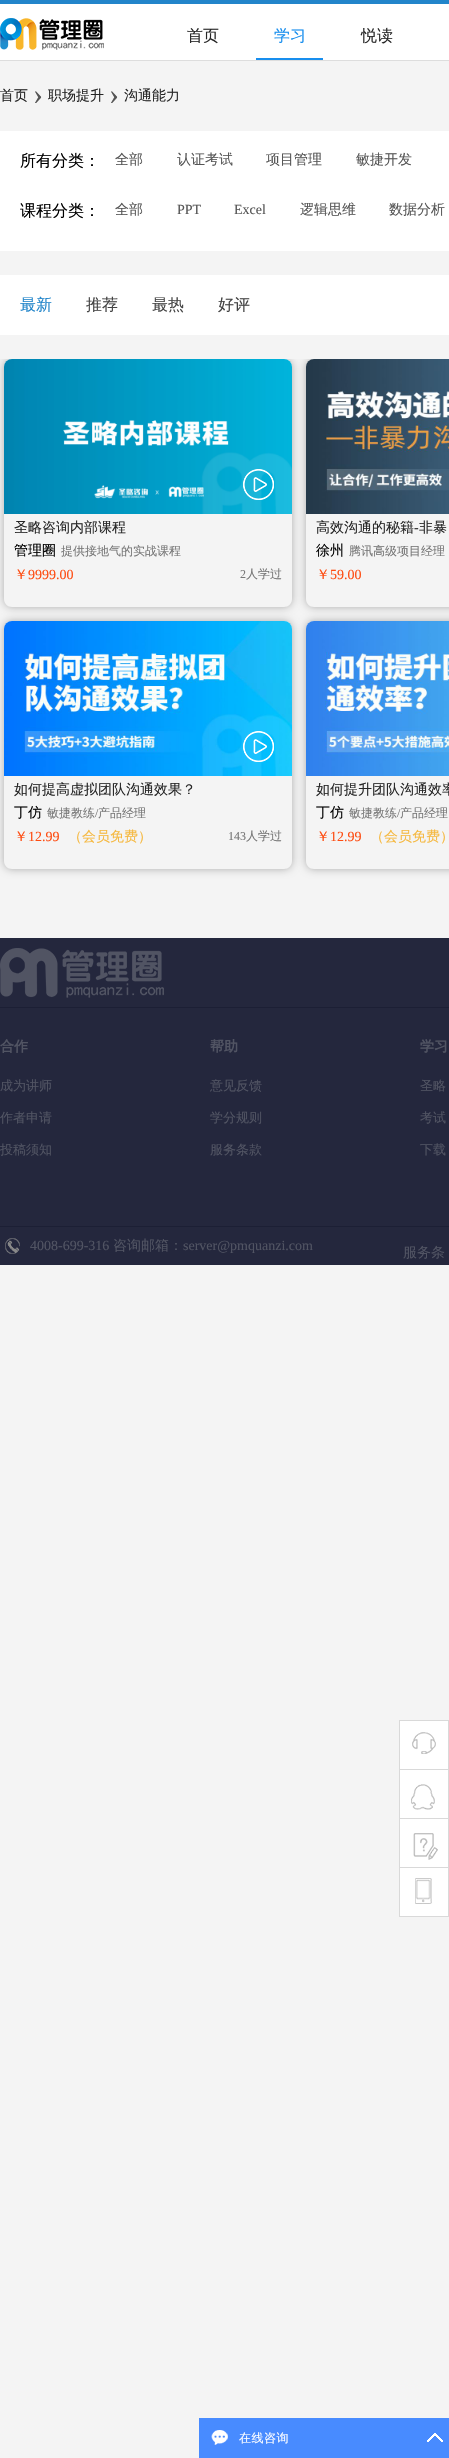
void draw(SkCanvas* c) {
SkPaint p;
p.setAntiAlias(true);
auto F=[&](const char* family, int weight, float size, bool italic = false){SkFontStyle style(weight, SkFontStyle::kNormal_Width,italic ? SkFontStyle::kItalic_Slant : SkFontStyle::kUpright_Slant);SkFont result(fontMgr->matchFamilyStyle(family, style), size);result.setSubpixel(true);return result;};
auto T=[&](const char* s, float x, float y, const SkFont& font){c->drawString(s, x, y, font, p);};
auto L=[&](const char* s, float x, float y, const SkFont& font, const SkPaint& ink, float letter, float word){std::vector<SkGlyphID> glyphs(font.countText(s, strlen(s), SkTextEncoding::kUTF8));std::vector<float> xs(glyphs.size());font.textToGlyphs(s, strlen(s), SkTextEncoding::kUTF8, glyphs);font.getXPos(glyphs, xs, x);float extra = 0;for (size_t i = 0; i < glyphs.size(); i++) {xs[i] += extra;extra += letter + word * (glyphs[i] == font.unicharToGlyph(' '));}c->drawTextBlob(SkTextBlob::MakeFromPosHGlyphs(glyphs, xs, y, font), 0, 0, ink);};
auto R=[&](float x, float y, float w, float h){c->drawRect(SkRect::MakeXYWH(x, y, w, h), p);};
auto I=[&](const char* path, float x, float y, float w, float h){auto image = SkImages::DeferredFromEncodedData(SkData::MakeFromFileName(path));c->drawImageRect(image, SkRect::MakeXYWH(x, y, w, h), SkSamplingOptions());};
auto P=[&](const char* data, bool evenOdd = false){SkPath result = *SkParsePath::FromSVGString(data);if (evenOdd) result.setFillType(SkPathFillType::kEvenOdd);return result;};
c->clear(0xfff4f4f4);
p.setColor(0xffffffff);
R(0,4,449,56);
p.setColor(0xff2285ca);
R(0,0,449,4);
p.setColor(0xffdddddd);
R(0,60,449,1);
I("1.png",0,18,104,32);
auto f1 = F("WenQuanYi Zen Hei",500,16);
p.setColor(0xff262626);
T("首页",187,41,f1);
p.setColor(0xff188eee);
R(256,58,67,2);
T("学习",274,41,f1);
p.setColor(0xff262626);
T("悦读",361,41,f1);
auto f2 = F("WenQuanYi Zen Hei",500,14);
T("首页",0,100,f2);
auto f3 = F("Liberation Serif",400,30);
p.setColor(0xff555555);
T("›",33,104,f3);
p.setColor(0xff262626);
T("职场提升",48,100,f2);
p.setColor(0xff555555);
T("›",109,104,f3);
p.setColor(0xff262626);
T("沟通能力",124,100,f2);
p.setColor(0xffffffff);
R(0,131,449,120);
p.setColor(0xff000000);
T("所有分类：",20,166,f1);
p.setColor(0xff555555);
T("全部",115,164,f2);
T("认证考试",177,164,f2);
T("项目管理",266,164,f2);
T("敏捷开发",356,164,f2);
p.setColor(0xff000000);
T("课程分类：",20,216,f1);
p.setColor(0xff555555);
T("全部",115,214,f2);
auto f4 = F("Liberation Serif",400,14);
T("PPT",177,214,f4);
T("Excel",234,214,f4);
T("逻辑思维",300,214,f2);
T("数据分析",389,214,f2);
p.setColor(0xffffffff);
R(0,275,449,60);
p.setColor(0xff2285ca);
T("最新",20,310,f1);
p.setColor(0xff444444);
T("推荐",86,310,f1);
T("最热",152,310,f1);
T("好评",218,310,f1);
c->save();
c->clipRect(SkRect::MakeXYWH(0,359,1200,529));
c->clipPath(P("M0 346h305v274h-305zm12 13h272c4.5 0 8 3.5 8 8v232c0 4.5-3.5 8-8 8h-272c-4.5 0-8-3.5-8-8v-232c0-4.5 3.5-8 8-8z",true),true);
p.setColor(0x4d000000);
p.setMaskFilter(SkMaskFilter::MakeBlur(kNormal_SkBlurStyle, 4));
c->drawRoundRect(SkRect::MakeXYWH(4,359,288,248),8,8,p);
p.setMaskFilter(nullptr);
c->restore();
I("2.png",4,359,288,155);
I("3.png",243,469,31,31);
p.setColor(0xff262626);
T("圣略咨询内部课程",14,532,f2);
p.setColor(0xff000000);
T("管理圈",14,555,f2);
auto f5 = F("WenQuanYi Zen Hei",500,12);
p.setColor(0xff767676);
T("提供接地气的实战课程",61,555,f5);
p.setColor(0xfffe4c11);
T("￥",14,579,f2);
T("9999.00",28,579,f4);
auto f6 = F("Liberation Serif",400,12);
p.setColor(0xff767676);
T("2",240,578,f6);
T("人学过",246,578,f5);
c->save();
c->clipRect(SkRect::MakeXYWH(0,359,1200,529));
c->clipPath(P("M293 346h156v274h-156zm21 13h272c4.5 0 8 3.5 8 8v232c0 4.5-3.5 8-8 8h-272c-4.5 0-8-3.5-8-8v-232c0-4.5 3.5-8 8-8z",true),true);
p.setColor(0x4d000000);
p.setMaskFilter(SkMaskFilter::MakeBlur(kNormal_SkBlurStyle, 4));
c->drawRoundRect(SkRect::MakeXYWH(306,359,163,248),8,8,p);
p.setMaskFilter(nullptr);
c->restore();
I("4.png",306,359,143,155);
p.setColor(0xff262626);
T("高效沟通的秘籍",316,532,f2);
T("-",414,532,f4);
T("非暴",419,532,f2);
p.setColor(0xff000000);
T("徐州",316,555,f2);
p.setColor(0xff767676);
T("腾讯高级项目经理",349,555,f5);
p.setColor(0xfffe4c11);
T("￥",316,579,f2);
T("59.00",330,579,f4);
c->save();
c->clipPath(P("M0 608h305v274h-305zm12 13h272c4.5 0 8 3.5 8 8v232c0 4.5-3.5 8-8 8h-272c-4.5 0-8-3.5-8-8v-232c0-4.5 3.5-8 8-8z",true),true);
p.setColor(0x4d000000);
p.setMaskFilter(SkMaskFilter::MakeBlur(kNormal_SkBlurStyle, 4));
c->drawRoundRect(SkRect::MakeXYWH(4,621,288,248),8,8,p);
p.setMaskFilter(nullptr);
c->restore();
I("5.png",4,621,288,155);
I("6.png",243,731,31,31);
p.setColor(0xff262626);
T("如何提高虚拟团队沟通效果？",14,794,f2);
p.setColor(0xff000000);
T("丁仿",14,817,f2);
p.setColor(0xff767676);
T("敏捷教练",47,817,f5);
T("/",95,817,f6);
T("产品经理",98,817,f5);
p.setColor(0xfffe4c11);
T("￥",14,841,f2);
T("12.99",28,841,f4);
p.setColor(0xfff6b941);
T("（会员免费）",68,841,f2);
p.setColor(0xff767676);
T("143",228,840,f6);
T("人学过",246,840,f5);
c->save();
c->clipPath(P("M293 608h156v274h-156zm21 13h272c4.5 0 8 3.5 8 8v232c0 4.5-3.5 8-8 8h-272c-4.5 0-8-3.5-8-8v-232c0-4.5 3.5-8 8-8z",true),true);
p.setColor(0x4d000000);
p.setMaskFilter(SkMaskFilter::MakeBlur(kNormal_SkBlurStyle, 4));
c->drawRoundRect(SkRect::MakeXYWH(306,621,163,248),8,8,p);
p.setMaskFilter(nullptr);
c->restore();
I("7.png",306,621,143,155);
p.setColor(0xff262626);
T("如何提升团队沟通效率",316,794,f2);
p.setColor(0xff000000);
T("丁仿",316,817,f2);
p.setColor(0xff767676);
T("敏捷教练",349,817,f5);
T("/",397,817,f6);
T("产品经理",400,817,f5);
p.setColor(0xfffe4c11);
T("￥",316,841,f2);
T("12.99",330,841,f4);
p.setColor(0xfff6b941);
T("（会员免费）",370,841,f2);
p.setColor(0xff24273d);
R(0,938,449,327);
p.setColor(0xff1c1f35);
R(0,1007,449,1);
I("8.png",0,948,164,50);
auto f7 = F("WenQuanYi Zen Hei",700,14);
p.setColor(0xff515463);
T("合作",0,1051,f7);
auto f8 = F("WenQuanYi Zen Hei",500,13);
T("成为讲师",0,1090,f8);
T("作者申请",0,1122,f8);
T("投稿须知",0,1154,f8);
T("帮助",210,1051,f7);
T("意见反馈",210,1090,f8);
T("学分规则",210,1122,f8);
T("服务条款",210,1154,f8);
T("学习",420,1051,f7);
T("圣略",420,1090,f8);
T("考试",420,1122,f8);
T("下载",420,1154,f8);
p.setColor(0xff1c1f35);
R(0,1226,449,1);
I("9.png",5,1238,15,16);
p.setColor(0xff515463);
T("4008-699-316",30,1250,f4);
T("咨询邮箱：",113,1250,f2);
T("server@pmquanzi.com",183,1250,f4);
T("服务条",403,1257,f2);
p.setColor(0xffffffff);
R(400,1721,48,48);
p.setColor(0xffd9d9d9);
R(399,1720,50,1);
R(448,1720,1,49);
R(399,1720,1,49);
I("10.png",412,1732,24,22);
p.setColor(0xffffffff);
R(400,1770,48,48);
p.setColor(0xffd9d9d9);
R(399,1769,50,1);
R(448,1769,1,49);
R(399,1769,1,49);
I("11.png",411,1784,24,26);
p.setColor(0xffffffff);
R(400,1819,48,48);
p.setColor(0xffd9d9d9);
R(399,1818,50,1);
R(448,1818,1,49);
R(399,1818,1,49);
I("12.png",413,1833,25,27);
p.setColor(0xffffffff);
c->drawRect(SkRect::MakeXYWH(399.5,1867.5,49,49),p);
p.setStroke(true);
p.setStrokeWidth(1);
p.setColor(0xffd9d9d9);
c->drawRect(SkRect::MakeXYWH(399.5,1867.5,49,49),p);
I("13.png",415,1878,17,26);
p.setStroke(false);
p.setColor(0xff488bff);
R(199,2418,250,40);
I("14.png",211,2430,17,15);
p.setColor(0xffffffff);
L("在线咨询",239,2442,f5,p,.5,0);
I("15.png",427,2433,16,9);
}
